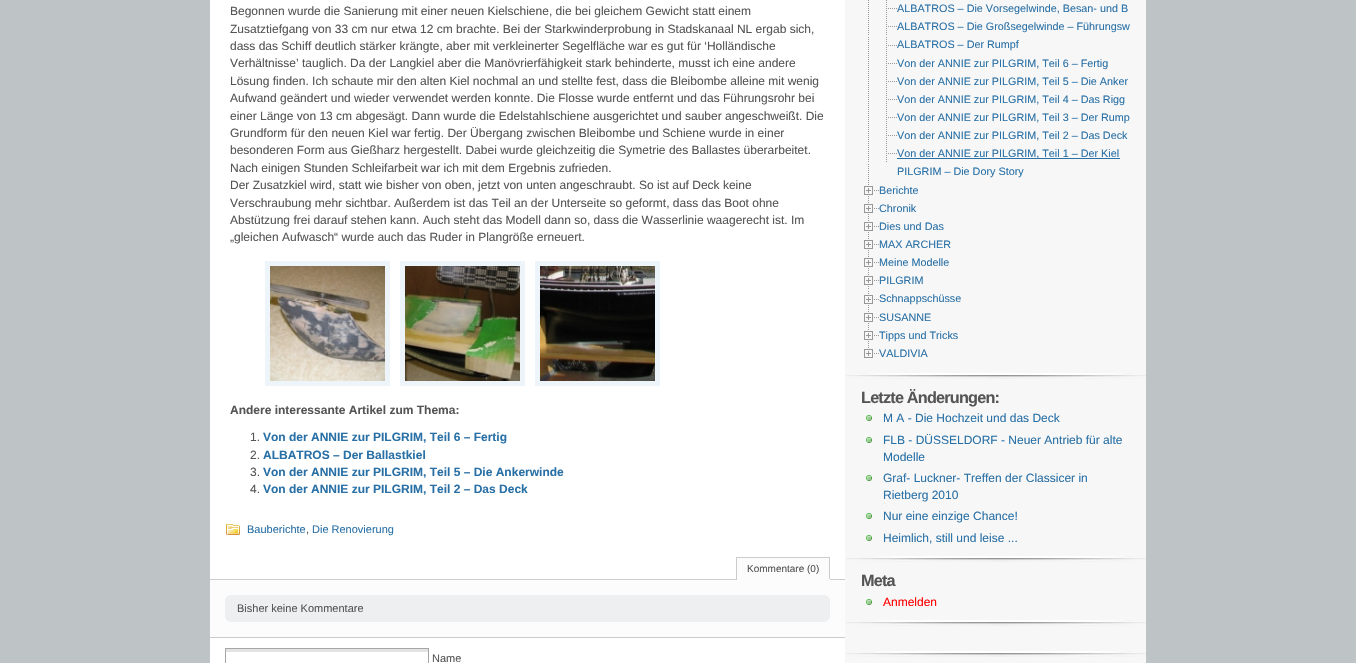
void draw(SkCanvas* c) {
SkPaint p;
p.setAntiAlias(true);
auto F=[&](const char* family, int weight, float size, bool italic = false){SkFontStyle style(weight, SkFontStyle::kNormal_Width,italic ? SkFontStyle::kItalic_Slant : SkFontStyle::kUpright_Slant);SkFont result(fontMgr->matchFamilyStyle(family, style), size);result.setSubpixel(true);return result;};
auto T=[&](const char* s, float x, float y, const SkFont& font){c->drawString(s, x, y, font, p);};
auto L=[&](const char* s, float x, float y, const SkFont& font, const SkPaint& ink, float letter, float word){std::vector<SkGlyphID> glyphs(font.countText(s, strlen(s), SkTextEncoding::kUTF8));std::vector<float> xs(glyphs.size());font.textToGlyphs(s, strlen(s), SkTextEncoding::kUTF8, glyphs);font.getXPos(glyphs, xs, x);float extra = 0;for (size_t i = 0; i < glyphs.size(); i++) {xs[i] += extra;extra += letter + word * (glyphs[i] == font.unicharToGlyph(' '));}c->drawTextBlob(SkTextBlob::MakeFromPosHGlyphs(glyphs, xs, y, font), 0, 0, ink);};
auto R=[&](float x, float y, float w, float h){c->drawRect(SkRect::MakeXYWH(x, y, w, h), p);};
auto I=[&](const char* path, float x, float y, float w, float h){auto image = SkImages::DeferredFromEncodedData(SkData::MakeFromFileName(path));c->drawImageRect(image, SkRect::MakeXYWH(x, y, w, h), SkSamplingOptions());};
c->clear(0xffbec3c6);
p.setColor(0xffffffff);
R(210,0,635,663);
p.setColor(0xfff7f7f7);
R(845,0,301,663);
auto f1 = F("Liberation Sans",400,12);
p.setColor(0xff555555);
T("Begonnen wurde die Sanierung mit einer neuen Kielschiene, die bei gleichem Gewicht statt einem",230,15,f1);
T("Zusatztiefgang von 33 cm nur etwa 12 cm brachte. Bei der Starkwinderprobung in Stadskanaal NL ergab sich,",230,33,f1);
T("dass das Schiff deutlich stärker krängte, aber mit verkleinerter Segelfläche war es gut für ‘Holländische",230,50,f1);
T("Verhältnisse’ tauglich. Da der Langkiel aber die Manövrierfähigkeit stark behinderte, musst ich eine andere",230,67,f1);
T("Lösung finden. Ich schaute mir den alten Kiel nochmal an und stellte fest, dass die Bleibombe alleine mit wenig",230,85,f1);
T("Aufwand geändert und wieder verwendet werden konnte. Die Flosse wurde entfernt und das Führungsrohr bei",230,102,f1);
T("einer Länge von 13 cm abgesägt. Dann wurde die Edelstahlschiene ausgerichtet und sauber angeschweißt. Die",230,120,f1);
T("Grundform für den neuen Kiel war fertig. Der Übergang zwischen Bleibombe und Schiene wurde in einer",230,137,f1);
T("besonderen Form aus Gießharz hergestellt. Dabei wurde gleichzeitig die Symetrie des Ballastes überarbeitet.",230,154,f1);
T("Nach einigen Stunden Schleifarbeit war ich mit dem Ergebnis zufrieden.",230,172,f1);
T("Der Zusatzkiel wird, statt wie bisher von oben, jetzt von unten angeschraubt. So ist auf Deck keine",230,189,f1);
T("Verschraubung mehr sichtbar. Außerdem ist das Teil an der Unterseite so geformt, dass das Boot ohne",230,207,f1);
T("Abstützung frei darauf stehen kann. Auch steht das Modell dann so, dass die Wasserlinie waagerecht ist. Im",230,224,f1);
T("„gleichen Aufwasch“ wurde auch das Ruder in Plangröße erneuert.",230,241,f1);
p.setColor(0xffedf5fa);
R(265,261,125,125);
I("1.png",270,266,115,115);
R(400,261,125,125);
I("2.png",405,266,115,115);
R(535,261,125,125);
I("3.png",540,266,115,115);
auto f2 = F("Liberation Sans",700,12);
p.setColor(0xff555555);
T("Andere interessante Artikel zum Thema:",230,414,f2);
T("1.",250,441,f1);
p.setColor(0xff2970a6);
T("Von der ANNIE zur PILGRIM, Teil 6 – Fertig",263,441,f2);
p.setColor(0xff555555);
T("2.",250,459,f1);
p.setColor(0xff2970a6);
T("ALBATROS – Der Ballastkiel",263,459,f2);
p.setColor(0xff555555);
T("3.",250,476,f1);
p.setColor(0xff2970a6);
T("Von der ANNIE zur PILGRIM, Teil 5 – Die Ankerwinde",263,476,f2);
p.setColor(0xff555555);
T("4.",250,493,f1);
p.setColor(0xff2970a6);
T("Von der ANNIE zur PILGRIM, Teil 2 – Das Deck",263,493,f2);
I("4.png",226,524,14,11);
auto f3 = F("Liberation Sans",400,11);
T("Bauberichte",247,533,f3);
p.setColor(0xff555555);
T(",",306,533,f3);
p.setColor(0xff2970a6);
T("Die Renovierung",312,533,f3);
p.setColor(0xfffcfcfc);
R(737,558,92,21);
p.setColor(0xffcccccc);
R(736,557,94,1);
R(210,579,635,1);
R(829,557,1,23);
p.setColor(0xfffcfcfc);
R(736,579,94,1);
p.setColor(0xffcccccc);
R(736,557,1,23);
auto f4 = F("Liberation Sans",400,10);
p.setColor(0xff555555);
T("Kommentare (0)",747,572,f4);
p.setColor(0xfffcfcfc);
R(210,580,635,57);
p.setColor(0xffcccccc);
R(210,637,635,1);
p.setColor(0xffedeff0);
R(225,595,605,27);
I("5.png",225,595,605,27);
p.setColor(0xff555555);
T("Bisher keine Kommentare",237,612,f3);
p.setColor(0xffe3e3e3);
R(225,649,204,3);
p.setStroke(true);
p.setStrokeWidth(1);
p.setColor(0xffa6a6a6);
c->drawRect(SkRect::MakeXYWH(225.5,648.5,203,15),p);
p.setStroke(false);
p.setColor(0xff555555);
T("Name",432,662,f3);
I("6.png",846,373,300,6);
I("7.png",868,0,1,17);
I("8.png",886,0,11,17);
auto f5 = F("Liberation Sans",400,10.8);
p.setColor(0xff2970a6);
T("ALBATROS – Die Vorsegelwinde, Besan- und B",897,12,f5);
I("7.png",868,18,1,17);
I("8.png",886,18,11,17);
T("ALBATROS – Die Großsegelwinde – Führungsw",897,30,f5);
I("7.png",868,37,1,17);
I("8.png",886,37,11,17);
T("ALBATROS – Der Rumpf",897,48,f5);
I("7.png",868,55,1,17);
I("8.png",886,55,11,17);
T("Von der ANNIE zur PILGRIM, Teil 6 – Fertig",897,67,f5);
I("7.png",868,73,1,17);
I("8.png",886,73,11,17);
T("Von der ANNIE zur PILGRIM, Teil 5 – Die Anker",897,85,f5);
I("7.png",868,91,1,17);
I("8.png",886,91,11,17);
T("Von der ANNIE zur PILGRIM, Teil 4 – Das Rigg",897,103,f5);
I("7.png",868,109,1,17);
I("8.png",886,109,11,17);
T("Von der ANNIE zur PILGRIM, Teil 3 – Der Rump",897,121,f5);
I("7.png",868,127,1,17);
I("8.png",886,127,11,17);
T("Von der ANNIE zur PILGRIM, Teil 2 – Das Deck",897,139,f5);
I("7.png",868,145,1,17);
I("8.png",886,145,11,17);
R(897,158,223,1);
T("Von der ANNIE zur PILGRIM, Teil 1 – Der Kiel",897,157,f5);
I("7.png",868,164,1,17);
T("PILGRIM – Die Dory Story",897,175,f5);
I("9.png",864,182,15,17);
T("Berichte",879,194,f5);
I("9.png",864,200,15,17);
T("Chronik",879,212,f5);
I("9.png",864,218,15,17);
T("Dies und Das",879,230,f5);
I("9.png",864,236,15,17);
T("MAX ARCHER",879,248,f5);
I("9.png",864,254,15,17);
T("Meine Modelle",879,266,f5);
I("9.png",864,272,15,17);
T("PILGRIM",879,284,f5);
I("9.png",864,291,15,17);
T("Schnappschüsse",879,302,f5);
I("9.png",864,309,15,17);
T("SUSANNE",879,321,f5);
I("9.png",864,327,15,17);
T("Tipps und Tricks",879,339,f5);
I("10.png",864,345,15,13);
T("VALDIVIA",879,357,f5);
I("6.png",846,556,300,6);
auto f6 = F("Liberation Sans",700,16.25);
p.setColor(0xff555555);
L("Letzte Änderungen:",861,403,f6,p,-.8,0);
I("11.png",866,415,6,6);
p.setColor(0xff2970a6);
T("M A - Die Hochzeit und das Deck",883,422,f1);
I("11.png",866,437,6,6);
T("FLB - DÜSSELDORF - Neuer Antrieb für alte",883,444,f1);
T("Modelle",883,461,f1);
I("11.png",866,475,6,6);
T("Graf- Luckner- Treffen der Classicer in",883,482,f1);
T("Rietberg 2010",883,499,f1);
I("11.png",866,513,6,6);
T("Nur eine einzige Chance!",883,520,f1);
I("11.png",866,535,6,6);
T("Heimlich, still und leise ...",883,542,f1);
I("6.png",846,620,300,6);
p.setColor(0xff555555);
L("Meta",861,586,f6,p,-.8,0);
I("11.png",866,599,6,6);
p.setColor(0xffff0000);
T("Anmelden",883,606,f1);
I("6.png",846,651,300,6);
}
